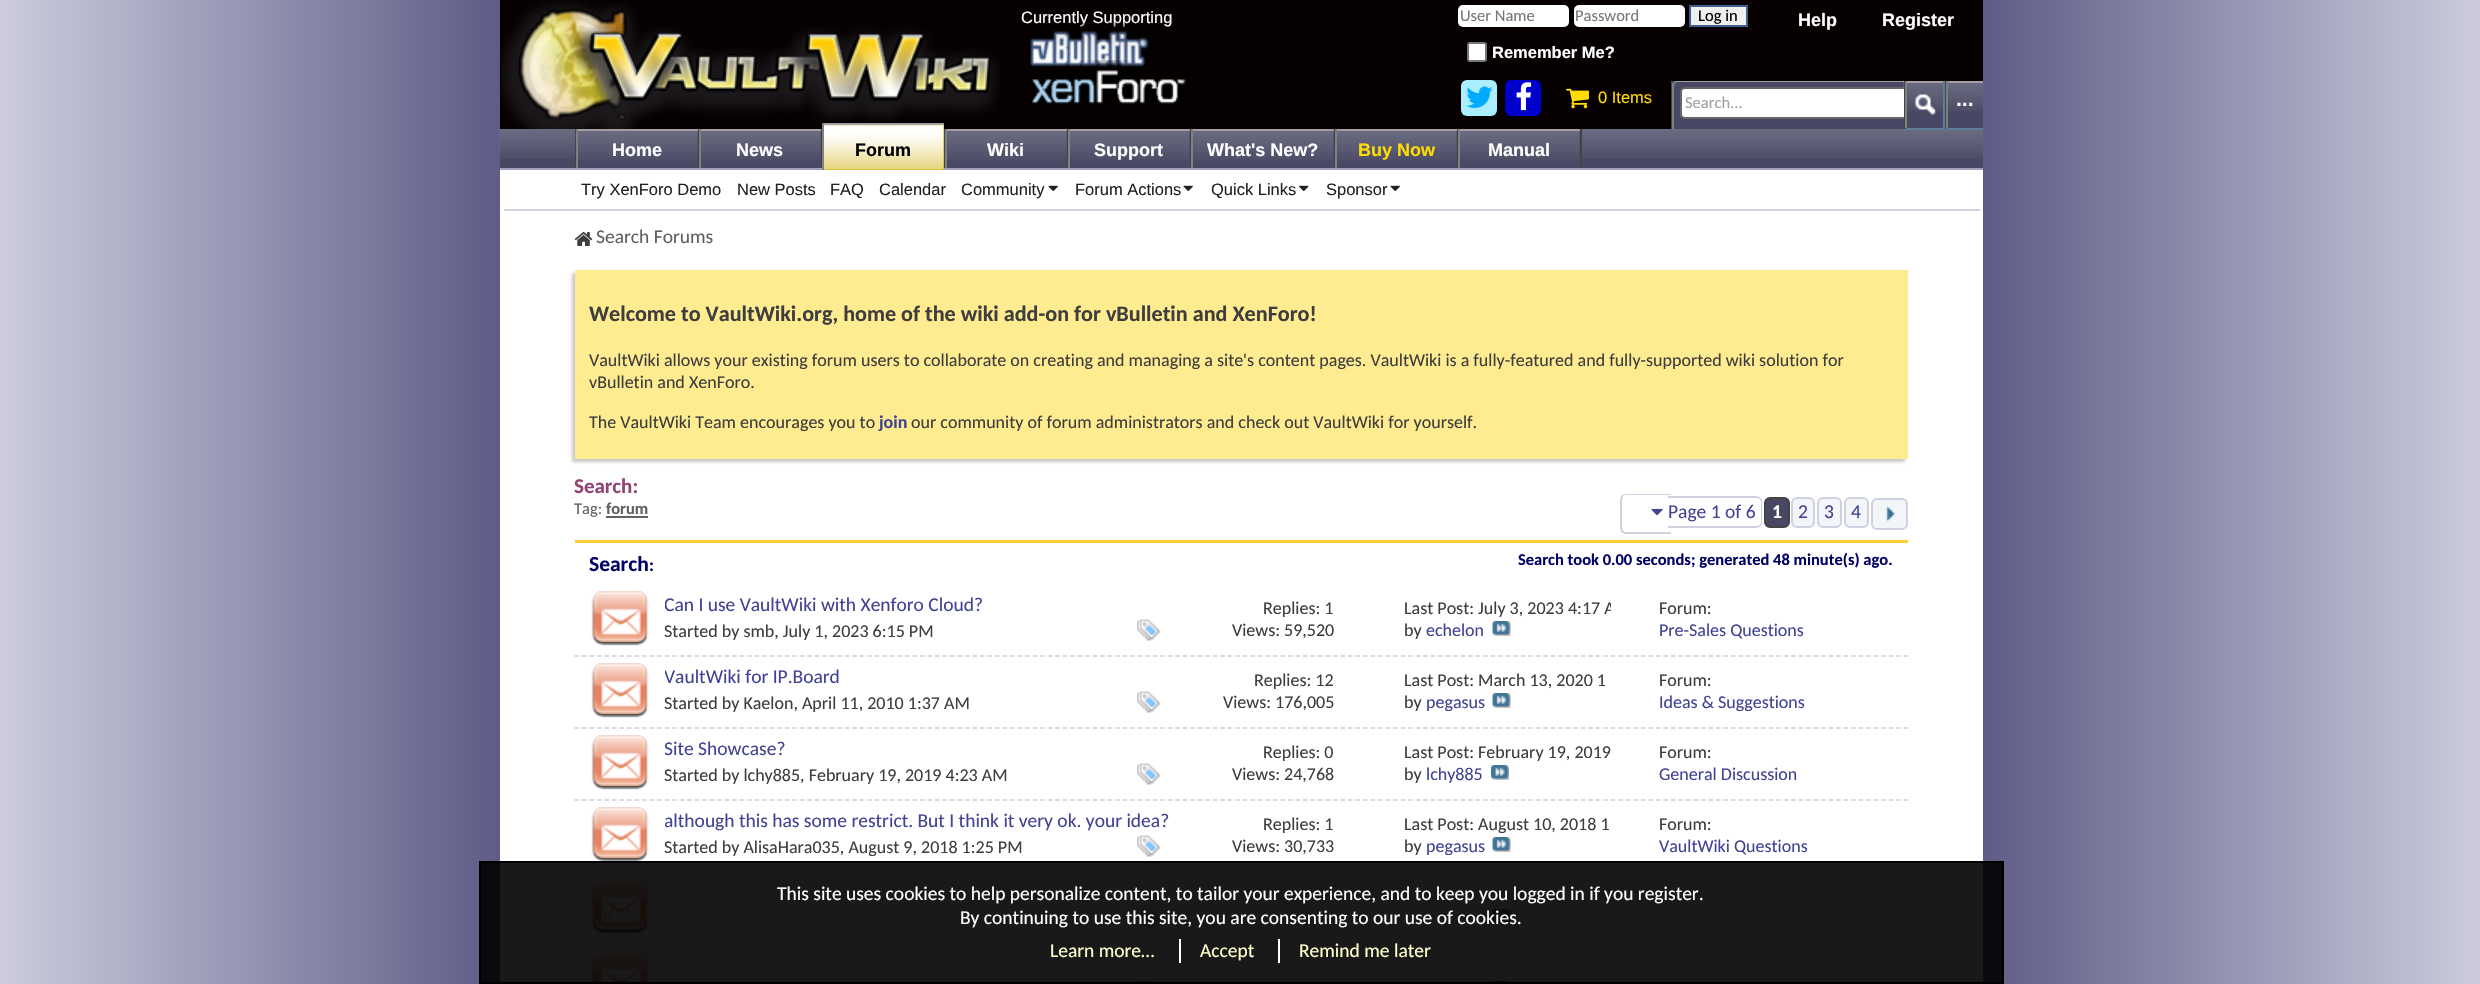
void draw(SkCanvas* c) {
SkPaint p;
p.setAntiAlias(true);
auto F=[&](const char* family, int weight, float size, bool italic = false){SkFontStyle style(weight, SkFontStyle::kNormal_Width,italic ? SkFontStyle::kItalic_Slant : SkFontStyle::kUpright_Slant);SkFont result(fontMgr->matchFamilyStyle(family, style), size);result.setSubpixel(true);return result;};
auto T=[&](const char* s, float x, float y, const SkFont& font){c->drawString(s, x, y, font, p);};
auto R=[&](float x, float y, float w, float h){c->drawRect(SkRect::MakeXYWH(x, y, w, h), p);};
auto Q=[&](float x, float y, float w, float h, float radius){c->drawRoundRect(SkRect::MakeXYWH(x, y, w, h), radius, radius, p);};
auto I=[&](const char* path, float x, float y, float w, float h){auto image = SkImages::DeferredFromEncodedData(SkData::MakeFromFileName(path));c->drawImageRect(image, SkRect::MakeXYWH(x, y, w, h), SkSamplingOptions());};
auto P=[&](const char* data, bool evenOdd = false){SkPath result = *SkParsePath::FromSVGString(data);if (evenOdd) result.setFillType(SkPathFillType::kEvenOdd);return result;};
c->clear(0xffffffff);
{
const SkColor colors[] = {0xffffffff,0xffffffff,0xff4f4c7a,0xffccccdd};
const float stops[] = {0,.54,.54,1};
const SkPoint ends[] = {{1241,492}, {0,492}};
p.setShader(SkGradientShader::MakeLinear(ends, colors, stops, 4, SkTileMode::kClamp));
p.setAlpha(255);
}
R(0,0,500,984);
{
const SkColor colors[] = {0xffffffff,0xffffffff,0xff4f4c7a,0xffccccdd};
const float stops[] = {0,.54,.54,1};
const SkPoint ends[] = {{1241,492}, {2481,492}};
p.setShader(SkGradientShader::MakeLinear(ends, colors, stops, 4, SkTileMode::kClamp));
p.setAlpha(255);
}
R(1983,0,497,984);
p.setShader(nullptr);
p.setColor(0xff060000);
R(500,0,1483,129);
I("1.png",499,0,501,129);
auto f1 = F("Liberation Sans",400,16.5);
p.setColor(0xffffffff);
T("Currently Supporting",1021,23,f1);
I("2.png",1029,22,120,46);
I("3.png",1031,60,155,44);
Q(1458,5,111,22,5);
auto f2 = F("Carlito",400,16.5);
p.setColor(0xff777777);
T("User Name",1460,21,f2);
p.setColor(0xffffffff);
Q(1574,5,111,22,5);
p.setColor(0xff777777);
T("Password",1575,21,f2);
p.setColor(0xffefefef);
c->drawRect(SkRect::MakeXYWH(1690,6,57,20),p);
p.setStroke(true);
p.setStrokeWidth(2);
p.setColor(0xff415d8d);
c->drawRect(SkRect::MakeXYWH(1690,6,57,20),p);
p.setStroke(false);
p.setColor(0xff000000);
T("Log in",1698,21,f2);
p.setColor(0xffffffff);
c->drawRoundRect(SkRect::MakeXYWH(1468,43,18,18),2,2,p);
p.setStroke(true);
p.setColor(0xff767676);
c->drawRoundRect(SkRect::MakeXYWH(1468,43,18,18),2,2,p);
auto f3 = F("Liberation Sans",700,16.5);
p.setStroke(false);
p.setColor(0xffffffff);
T("Remember Me?",1492,58,f3);
auto f4 = F("Liberation Sans",700,18);
T("Help",1798,26,f4);
T("Register",1882,26,f4);
p.setColor(0xffaaeeff);
Q(1461,80,36,36,6);
I("4.png",1466,86,27,22);
p.setColor(0xff0000cc);
Q(1505,80,36,36,6);
I("5.png",1516,82,16,29);
I("6.png",1566,88,23,21);
p.setColor(0xffffdd00);
T("0 Items",1598,103,f1);
p.setColor(0xffd0d0e0);
R(504,209,1476,2);
p.setColor(0xff484864);
R(1671,81,312,48);
p.setColor(0xff444444);
R(1671,84,1,42);
p.setColor(0xffa0a0a0);
c->drawPath(P("M1677 81l-3 1l1 1l2-1h227v-1z"),p);
p.setColor(0xff808080);
c->drawPath(P("M1672 129v-45l2-2l1 1l-1 3v43z"),p);
p.setColor(0xffffffff);
c->drawRoundRect(SkRect::MakeXYWH(1681,88,226,30),4,4,p);
p.setStroke(true);
p.setColor(0xff666666);
c->drawRoundRect(SkRect::MakeXYWH(1681,88,226,30),4,4,p);
p.setStroke(false);
p.setColor(0xffa0a0a0);
T("Search...",1685,108,f2);
p.setColor(0xff484864);
R(1907,89,1,28);
I("7.png",1903,81,40,30);
R(500,129,1483,39);
I("10.png",499,129,1484,30);
p.setColor(0xff5a7f97);
R(1944,128,39,2);
R(1943,81,2,48);
R(1904,128,40,2);
p.setColor(0xff444444);
R(1904,81,2,48);
p.setColor(0xffa0a0a0);
R(1905,81,38,2);
p.setColor(0xff808080);
R(1905,81,2,47);
I("8.png",1915,94,21,22);
I("9.png",1948,83,35,28);
p.setColor(0xff444444);
R(1945,81,1,48);
p.setColor(0xffa0a0a0);
R(1946,81,37,2);
p.setColor(0xff808080);
R(1946,81,2,47);
auto f5 = F("Liberation Sans",700,21);
p.setColor(0xffffffff);
T("...",1956,106,f5);
p.setColor(0xff444444);
R(698,129,1,41);
R(575,129,1,41);
p.setColor(0xff484864);
R(578,131,120,28);
I("11.png",578,131,120,30);
p.setColor(0xffa0a0a0);
R(576,129,122,2);
p.setColor(0xff808080);
R(576,129,2,41);
p.setColor(0xffffffff);
T("Home",612,156,f4);
p.setColor(0xff444444);
R(821,129,1,41);
p.setColor(0xff484864);
R(701,131,120,28);
I("11.png",701,131,120,30);
p.setColor(0xffa0a0a0);
R(699,129,122,2);
p.setColor(0xff808080);
R(699,129,2,41);
p.setColor(0xffffffff);
T("News",736,156,f4);
p.setColor(0xff444444);
R(944,129,1,39);
R(1067,129,1,41);
p.setColor(0xffa0a0a0);
R(945,129,122,2);
p.setColor(0xff808080);
R(945,129,2,41);
p.setColor(0xff444444);
R(1190,129,1,41);
p.setColor(0xffa0a0a0);
R(1068,129,122,2);
p.setColor(0xff808080);
R(1068,129,2,41);
p.setColor(0xff444444);
R(1334,129,1,41);
p.setColor(0xffa0a0a0);
R(1191,129,143,2);
p.setColor(0xff808080);
R(1191,129,2,41);
p.setColor(0xff444444);
R(1457,129,1,41);
p.setColor(0xffa0a0a0);
R(1335,129,122,2);
p.setColor(0xff808080);
R(1335,129,2,41);
p.setColor(0xff444444);
R(1580,129,2,41);
p.setColor(0xffa0a0a0);
R(1458,129,122,2);
p.setColor(0xff808080);
R(1458,129,2,41);
p.setColor(0xffa0a0c0);
R(500,168,1483,2);
p.setColor(0xffccaa00);
R(824,125,120,45);
I("12.png",824,125,120,45);
p.setColor(0xffa0a0a0);
R(822,123,122,2);
p.setColor(0xff808080);
R(822,123,2,47);
p.setColor(0xff000000);
T("Forum",855,156,f4);
p.setColor(0xff484864);
R(947,131,120,28);
I("11.png",947,131,120,30);
p.setColor(0xffffffff);
T("Wiki",987,156,f4);
p.setColor(0xff484864);
R(1070,131,120,28);
I("11.png",1070,131,120,30);
p.setColor(0xffffffff);
T("Support",1094,156,f4);
p.setColor(0xff484864);
R(1193,131,141,28);
I("13.png",1193,131,141,30);
p.setColor(0xffffffff);
T("What's New?",1207,156,f4);
p.setColor(0xff484864);
R(1337,131,120,28);
I("11.png",1337,131,120,30);
p.setColor(0xffffdd00);
T("Buy Now",1358,156,f4);
p.setColor(0xff484864);
R(1460,131,120,28);
I("11.png",1460,131,120,30);
p.setColor(0xffffffff);
T("Manual",1488,156,f4);
p.setColor(0xff222222);
T("Try XenForo Demo",581,195,f1);
T("New Posts",737,195,f1);
T("FAQ",830,195,f1);
T("Calendar",879,195,f1);
T("Community",961,195,f1);
I("14.png",1048,185,10,6);
T("Forum Actions",1075,195,f1);
I("14.png",1183,185,10,6);
T("Quick Links",1211,195,f1);
I("15.png",1299,185,10,6);
T("Sponsor",1326,195,f1);
I("14.png",1390,185,10,6);
I("16.png",574,232,19,14);
auto f6 = F("Carlito",400,19.5);
p.setColor(0xff606060);
T("Search Forums",596,243,f6);
p.setColor(0xffc8c8c8);
p.setMaskFilter(SkMaskFilter::MakeBlur(kNormal_SkBlurStyle, 1.5));
c->drawRect(SkRect::MakeXYWH(572,273,1333,189),p);
p.setMaskFilter(nullptr);
p.setColor(0xffffeb90);
R(575,270,1333,189);
auto f7 = F("Carlito",700,22.15);
p.setColor(0xff3e3e3e);
T("Welcome to VaultWiki.org, home of the wiki add-on for vBulletin and XenForo!",589,321,f7);
auto f8 = F("Carlito",400,18);
T("VaultWiki allows your existing forum users to collaborate on creating and managing a site's content pages. VaultWiki is a fully-featured and fully-supported wiki solution for",589,366,f8);
T("vBulletin and XenForo.",589,388,f8);
T("The VaultWiki Team encourages you to",589,428,f8);
auto f9 = F("Carlito",700,18);
p.setColor(0xff414394);
T("join",879,428,f9);
p.setColor(0xff3e3e3e);
T("our community of forum administrators and check out VaultWiki for yourself.",911,428,f8);
auto f10 = F("Carlito",700,21);
p.setColor(0xff914371);
T("Search:",574,493,f10);
p.setColor(0xff606060);
T("Tag:",574,514,f2);
auto f11 = F("Carlito",700,16.5);
T("forum",606,514,f11);
R(606,516,42,2);
p.setColor(0xffd0d0e0);
c->drawPath(P("M1626 494h45v40h-45c-3 0-6-3-6-6v-28c0-4 3-6 6-6zm0 1h45v37h-45c-2 0-4-2-4-4v-28c0-3 2-5 4-5z",true),p);
c->drawPath(P("M1668 496h88c4 0 6 3 6 6v20c0 3-2 6-6 6h-88zm0 2h88c3 0 5 2 5 4v20c0 2-2 4-5 4h-88z",true),p);
I("17.png",1651,508,12,8);
p.setColor(0xff414394);
T("Page 1 of 6",1668,518,f6);
p.setColor(0xff484864);
c->drawRoundRect(SkRect::MakeXYWH(1765,498,24,29),5,5,p);
p.setStroke(true);
p.setColor(0xff444444);
c->drawRoundRect(SkRect::MakeXYWH(1765,498,24,29),5,5,p);
auto f12 = F("Carlito",700,19.5);
p.setStroke(false);
p.setColor(0xffffffff);
T("1",1772,518,f12);
p.setColor(0xfff2f6f8);
c->drawRoundRect(SkRect::MakeXYWH(1792,498,22,29),5,5,p);
p.setStroke(true);
p.setColor(0xffd0d0e0);
c->drawRoundRect(SkRect::MakeXYWH(1792,498,22,29),5,5,p);
p.setStroke(false);
p.setColor(0xff414394);
T("2",1798,518,f6);
p.setColor(0xfff2f6f8);
c->drawRoundRect(SkRect::MakeXYWH(1818,498,23,29),5,5,p);
p.setStroke(true);
p.setColor(0xffd0d0e0);
c->drawRoundRect(SkRect::MakeXYWH(1818,498,23,29),5,5,p);
p.setStroke(false);
p.setColor(0xff414394);
T("3",1824,518,f6);
p.setColor(0xfff2f6f8);
c->drawRoundRect(SkRect::MakeXYWH(1845,498,23,29),5,5,p);
p.setStroke(true);
p.setColor(0xffd0d0e0);
c->drawRoundRect(SkRect::MakeXYWH(1845,498,23,29),5,5,p);
p.setStroke(false);
p.setColor(0xff414394);
T("4",1851,518,f6);
p.setColor(0xfff2f6f8);
c->drawRoundRect(SkRect::MakeXYWH(1872,499,35,30),5,5,p);
p.setStroke(true);
p.setColor(0xffd0d0e0);
c->drawRoundRect(SkRect::MakeXYWH(1872,499,35,30),5,5,p);
I("18.png",1886,506,9,15);
p.setStroke(false);
p.setColor(0xffffcc33);
R(575,540,1333,3);
auto f13 = F("Carlito",700,21.5);
p.setColor(0xff000066);
T("Search",589,571,f13);
T(":",649,571,f9);
T("Search took 0.00 seconds; generated 48 minute(s) ago.",1518,565,f11);
I("19.png",591,591,58,55);
c->save();
c->clipRect(SkRect::MakeXYWH(665,585,510,35));
p.setColor(0xff414394);
T("Can I use VaultWiki with Xenforo Cloud?",664,611,f6);
c->restore();
p.setColor(0xff3e3e3e);
T("Started by smb, July 1, 2023 6:15 PM",664,637,f8);
I("20.png",1137,619,23,22);
T("Replies: 1",1263,614,f8);
T("Views: 59,520",1232,636,f8);
T("Last Post: July 3, 2023",1404,614,f8);
c->save();
c->clipRect(SkRect::MakeXYWH(1404,597,207,23));
T("4:17 A",1568,614,f8);
c->restore();
T("by",1404,636,f8);
p.setColor(0xff414394);
T("echelon",1426,636,f8);
I("21.png",1492,621,19,15);
p.setColor(0xff3e3e3e);
T("Forum:",1659,614,f8);
p.setColor(0xff414394);
T("Pre-Sales Questions",1659,636,f8);
p.setStroke(true);
p.setStrokeWidth(1.5);
p.setColor(0xffd0d0e0);
p.setPathEffect(SkDashPathEffect::Make({{4.5f,3.01f}}, 0));
c->drawPath(P("M574.5 656h1333.5"),p);
p.setPathEffect(nullptr);
I("19.png",591,663,58,55);
c->save();
c->clipRect(SkRect::MakeXYWH(665,657,510,35));
p.setStroke(false);
p.setColor(0xff414394);
T("VaultWiki for IP.Board",664,683,f6);
c->restore();
p.setColor(0xff3e3e3e);
T("Started by Kaelon, April 11, 2010 1:37 AM",664,709,f8);
I("20.png",1137,691,23,22);
T("Replies: 12",1254,686,f8);
T("Views: 176,005",1223,708,f8);
T("Last Post: March 13, 2020 1",1404,686,f8);
T("by",1404,708,f8);
p.setColor(0xff414394);
T("pegasus",1426,708,f8);
I("21.png",1492,693,19,15);
p.setColor(0xff3e3e3e);
T("Forum:",1659,686,f8);
p.setColor(0xff414394);
T("Ideas & Suggestions",1659,708,f8);
p.setStroke(true);
p.setColor(0xffd0d0e0);
p.setPathEffect(SkDashPathEffect::Make({{4.5f,3.01f}}, 0));
c->drawPath(P("M574.5 728h1333.5"),p);
p.setPathEffect(nullptr);
I("19.png",591,735,58,55);
c->save();
c->clipRect(SkRect::MakeXYWH(665,729,510,35));
p.setStroke(false);
p.setColor(0xff414394);
T("Site Showcase?",664,755,f6);
c->restore();
p.setColor(0xff3e3e3e);
T("Started by lchy885, February 19, 2019 4:23 AM",664,781,f8);
I("20.png",1137,763,23,22);
T("Replies: 0",1263,758,f8);
T("Views: 24,768",1232,780,f8);
T("Last Post: February 19, 2019",1404,758,f8);
T("by",1404,780,f8);
p.setColor(0xff414394);
T("lchy885",1426,780,f8);
I("22.png",1491,765,18,15);
p.setColor(0xff3e3e3e);
T("Forum:",1659,758,f8);
p.setColor(0xff414394);
T("General Discussion",1659,780,f8);
p.setStroke(true);
p.setColor(0xffd0d0e0);
p.setPathEffect(SkDashPathEffect::Make({{4.5f,3.01f}}, 0));
c->drawPath(P("M574.5 800h1333.5"),p);
p.setPathEffect(nullptr);
I("23.png",591,807,58,54);
c->save();
c->clipRect(SkRect::MakeXYWH(665,801,510,35));
p.setStroke(false);
p.setColor(0xff414394);
T("although this has some restrict. But I think it very ok. your idea?",664,827,f6);
c->restore();
p.setColor(0xff3e3e3e);
T("Started by AlisaHara035, August 9, 2018 1:25 PM",664,853,f8);
I("20.png",1137,835,23,22);
T("Replies: 1",1263,830,f8);
T("Views: 30,733",1232,852,f8);
T("Last Post: August 10, 2018 1",1404,830,f8);
T("by",1404,852,f8);
p.setColor(0xff414394);
T("pegasus",1426,852,f8);
I("21.png",1492,837,19,15);
p.setColor(0xff3e3e3e);
T("Forum:",1659,830,f8);
p.setColor(0xff414394);
T("VaultWiki Questions",1659,852,f8);
p.setStroke(true);
p.setColor(0xffd0d0e0);
p.setPathEffect(SkDashPathEffect::Make({{4.5f,3.01f}}, 0));
c->drawPath(P("M574.5 872h1333.5"),p);
p.setPathEffect(nullptr);
I("19.png",591,879,58,55);
I("20.png",1137,907,23,22);
I("21.png",1492,909,19,15);
p.setPathEffect(SkDashPathEffect::Make({{4.5f,3.01f}}, 0));
c->drawPath(P("M574.5 944h1333.5"),p);
p.setPathEffect(nullptr);
I("24.png",591,951,58,31);
I("25.png",1137,979,16,3);
I("26.png",1492,981,18,1);
p.setStroke(false);
p.setColor(0xe6000000);
c->drawRect(SkRect::MakeXYWH(480,862,1523,121),p);
p.setStroke(true);
p.setStrokeWidth(2);
p.setColor(0xff000000);
c->drawRect(SkRect::MakeXYWH(480,862,1523,121),p);
p.setStroke(false);
p.setColor(0xffffffff);
T("This site uses cookies to help personalize content, to tailor your experience, and to keep you logged in if you register.",777,900,f6);
T("By continuing to use this site, you are consenting to our use of cookies.",960,924,f6);
p.setColor(0xffffffcc);
T("Learn more…",1050,957,f6);
p.setColor(0xffffffff);
R(1179,939,2,24);
p.setColor(0xffffffcc);
T("Accept",1200,957,f6);
p.setColor(0xffffffff);
R(1278,939,2,24);
p.setColor(0xffffffcc);
T("Remind me later",1299,957,f6);
}
